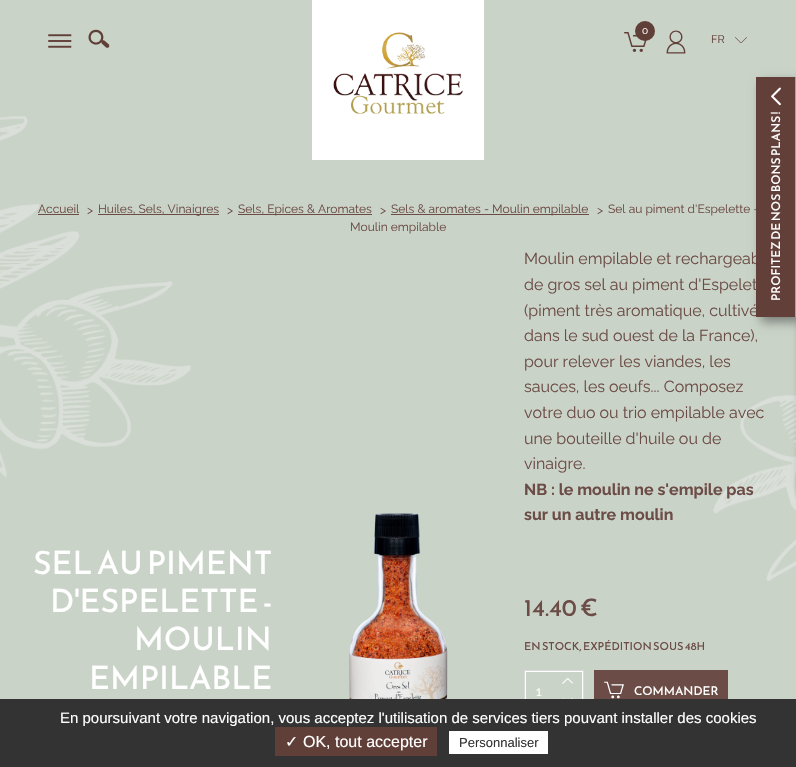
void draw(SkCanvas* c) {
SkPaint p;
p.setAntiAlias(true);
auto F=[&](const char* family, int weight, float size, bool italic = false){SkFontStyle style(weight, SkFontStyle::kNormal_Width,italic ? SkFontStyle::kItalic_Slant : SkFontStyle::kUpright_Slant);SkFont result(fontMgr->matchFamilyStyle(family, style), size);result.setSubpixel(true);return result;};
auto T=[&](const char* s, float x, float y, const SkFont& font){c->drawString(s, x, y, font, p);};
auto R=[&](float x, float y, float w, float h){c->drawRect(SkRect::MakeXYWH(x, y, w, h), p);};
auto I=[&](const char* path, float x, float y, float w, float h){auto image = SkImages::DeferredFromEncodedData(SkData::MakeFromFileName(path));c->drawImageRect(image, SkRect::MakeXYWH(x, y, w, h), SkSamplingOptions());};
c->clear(0xffcad3c8);
I("1.png",48,34,24,14);
I("2.png",88,29,22,19);
I("7.png",0,116,796,465);
p.setColor(0xffffffff);
R(312,0,172,160);
I("3.png",333,32,130,82);
I("4.png",624,32,23,20);
p.setColor(0xff613f39);
c->drawCircle(645,31,10,p);
auto f1 = F("Raleway",400,10);
p.setColor(0xffffffff);
T("0",642,34,f1);
I("5.png",666,30,20,24);
auto f2 = F("Raleway",400,11);
p.setColor(0xff613f39);
T("FR",711,43,f2);
I("6.png",735,37,12,6);
auto f3 = F("Raleway",400,12);
p.setColor(0xff6c4c46);
T("Accueil",38,213,f3);
R(38,214,41,1);
T(">",87,214,f3);
R(98,214,121,1);
T("Huiles, Sels, Vinaigres",98,213,f3);
T(">",227,214,f3);
R(238,214,134,1);
T("Sels, Epices & Aromates",238,213,f3);
T(">",597,214,f3);
T("Sel au piment d'Espelette -",608,213,f3);
T("Moulin empilable",350,231,f3);
T(">",380,214,f3);
R(391,214,198,1);
T("Sels & aromates - Moulin empilable",391,213,f3);
auto f4 = F("Reem Kufi",400,32);
p.setColor(0xffffffff);
T("SEL AU PIMENT",33,574,f4);
T("D'ESPELETTE -",50,612,f4);
T("MOULIN",134,650,f4);
T("EMPILABLE",89,689,f4);
I("8.png",349,513,99,186);
auto f5 = F("Raleway",400,16);
p.setColor(0xff6c4c46);
T("Moulin empilable et rechargeab",524,264,f5);
T("de gros sel au piment d'Espelet",524,290,f5);
T("(piment très aromatique, cultivé",524,316,f5);
T("dans le sud ouest de la France),",524,341,f5);
T("pour relever les viandes, les",524,367,f5);
T("sauces, les oeufs... Composez",524,392,f5);
T("votre duo ou trio empilable avec",524,418,f5);
T("une bouteille d'huile ou de",524,444,f5);
T("vinaigre.",524,469,f5);
auto f6 = F("Raleway",700,16);
T("NB : le moulin ne s'empile pas",524,495,f6);
T("sur un autre moulin",524,520,f6);
auto f7 = F("Reem Kufi",400,24);
T("14.40 €",524,616,f7);
auto f8 = F("Reem Kufi",400,11);
T("EN STOCK, EXPÉDITION SOUS 48H",524,650,f8);
p.setStroke(true);
p.setStrokeWidth(1);
p.setColor(0xffdadada);
c->drawRect(SkRect::MakeXYWH(524.5,670.5,59,41),p);
p.setColor(0xffffffff);
c->drawRect(SkRect::MakeXYWH(525.5,671.5,57,39),p);
I("9.png",562,678,11,6);
auto f9 = F("Raleway",400,13);
p.setStroke(false);
T("1",536,696,f9);
I("10.png",562,698,11,1);
p.setColor(0xff6c4c46);
R(594,670,134,29);
I("11.png",604,681,20,18);
auto f10 = F("Reem Kufi",400,12);
p.setColor(0xffffffff);
T("COMMANDER",634,695,f10);
p.setColor(0x66000000);
p.setMaskFilter(SkMaskFilter::MakeBlur(kNormal_SkBlurStyle, 5));
c->drawRect(SkRect::MakeXYWH(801,82,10,407),p);
p.setMaskFilter(nullptr);
p.setMaskFilter(SkMaskFilter::MakeBlur(kNormal_SkBlurStyle, 5));
c->drawRect(SkRect::MakeXYWH(761,82,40,240),p);
p.setMaskFilter(nullptr);
p.setColor(0xff623f39);
R(756,77,39,240);
p.setColor(0xffca92af);
R(795,77,1,240);
I("12.png",771,87,10,19);
p.setColor(0xffffffff);
c->save();
c->rotate(-90,780,301);
T("PROFITEZ DE NOS BONS PLANS !",780,301,f10);
c->restore();
p.setColor(0xff333333);
R(0,699,796,68);
auto f11 = F("Liberation Sans",400,15);
p.setColor(0xffffffff);
T("En poursuivant votre navigation, vous acceptez l'utilisation de services tiers pouvant installer des cookies",60,723,f11);
p.setColor(0xff613f39);
R(275,727,162,29);
auto f12 = F("DejaVu Sans",400,16);
p.setColor(0xffffffff);
T("✓",285,747,f12);
auto f13 = F("Liberation Sans",400,16);
T("OK, tout accepter",303,747,f13);
R(449,731,99,23);
auto f14 = F("Liberation Sans",400,13);
p.setColor(0xff333333);
T("Personnaliser",459,747,f14);
}
